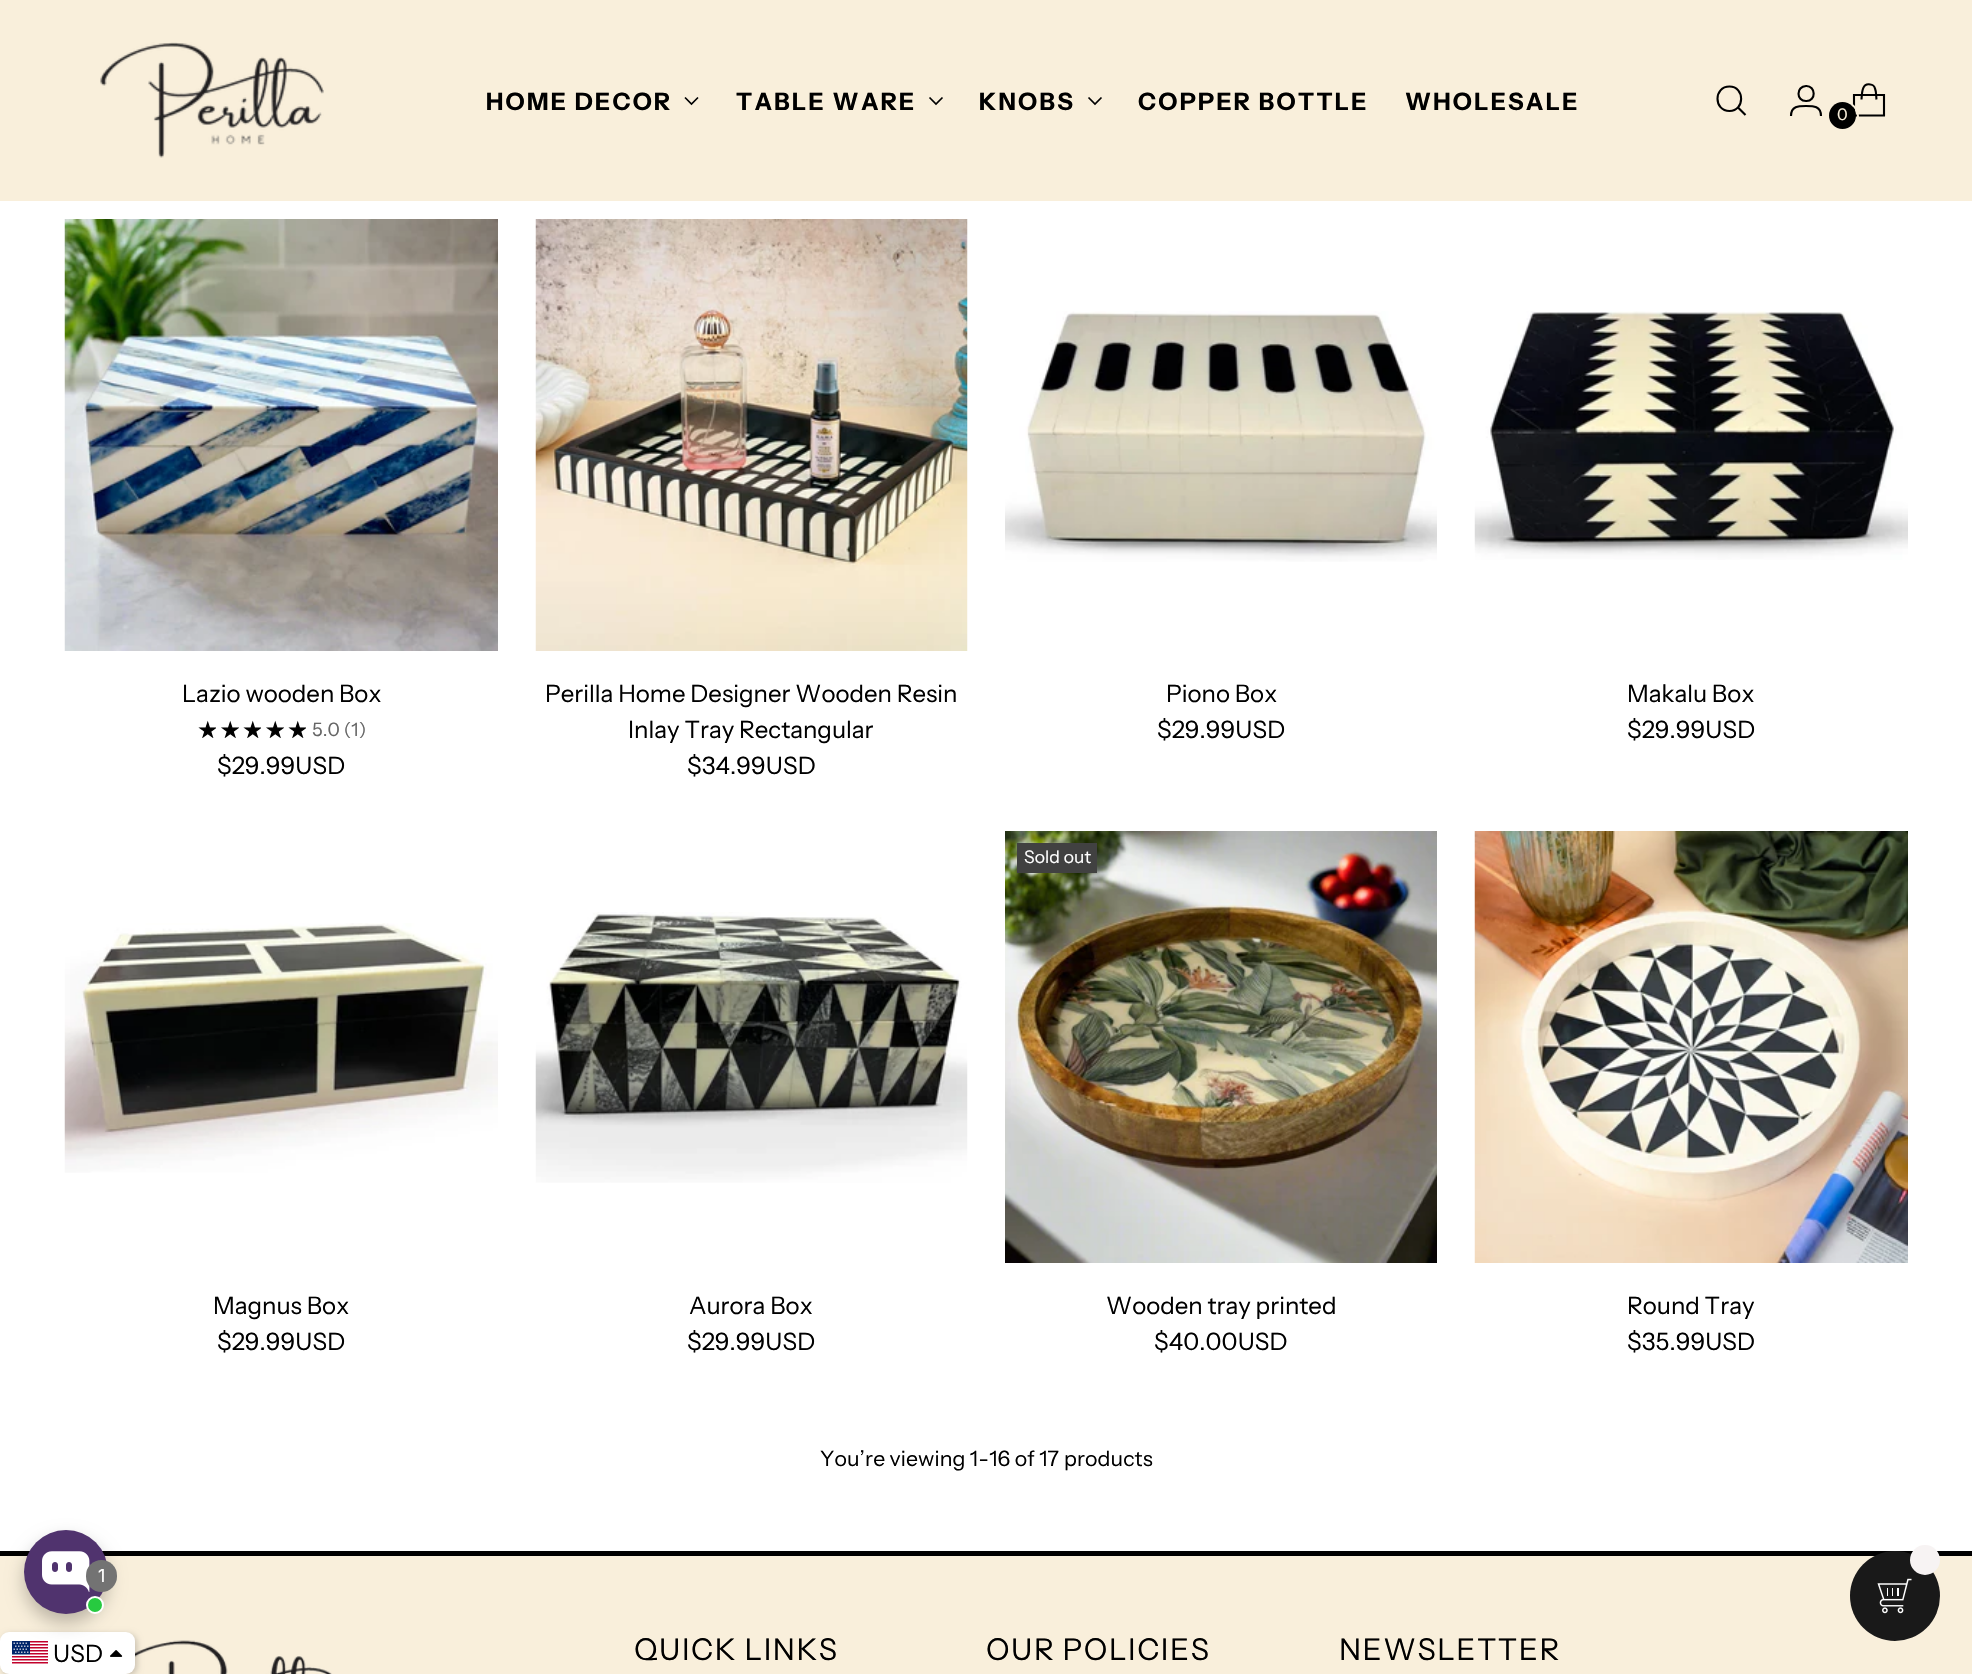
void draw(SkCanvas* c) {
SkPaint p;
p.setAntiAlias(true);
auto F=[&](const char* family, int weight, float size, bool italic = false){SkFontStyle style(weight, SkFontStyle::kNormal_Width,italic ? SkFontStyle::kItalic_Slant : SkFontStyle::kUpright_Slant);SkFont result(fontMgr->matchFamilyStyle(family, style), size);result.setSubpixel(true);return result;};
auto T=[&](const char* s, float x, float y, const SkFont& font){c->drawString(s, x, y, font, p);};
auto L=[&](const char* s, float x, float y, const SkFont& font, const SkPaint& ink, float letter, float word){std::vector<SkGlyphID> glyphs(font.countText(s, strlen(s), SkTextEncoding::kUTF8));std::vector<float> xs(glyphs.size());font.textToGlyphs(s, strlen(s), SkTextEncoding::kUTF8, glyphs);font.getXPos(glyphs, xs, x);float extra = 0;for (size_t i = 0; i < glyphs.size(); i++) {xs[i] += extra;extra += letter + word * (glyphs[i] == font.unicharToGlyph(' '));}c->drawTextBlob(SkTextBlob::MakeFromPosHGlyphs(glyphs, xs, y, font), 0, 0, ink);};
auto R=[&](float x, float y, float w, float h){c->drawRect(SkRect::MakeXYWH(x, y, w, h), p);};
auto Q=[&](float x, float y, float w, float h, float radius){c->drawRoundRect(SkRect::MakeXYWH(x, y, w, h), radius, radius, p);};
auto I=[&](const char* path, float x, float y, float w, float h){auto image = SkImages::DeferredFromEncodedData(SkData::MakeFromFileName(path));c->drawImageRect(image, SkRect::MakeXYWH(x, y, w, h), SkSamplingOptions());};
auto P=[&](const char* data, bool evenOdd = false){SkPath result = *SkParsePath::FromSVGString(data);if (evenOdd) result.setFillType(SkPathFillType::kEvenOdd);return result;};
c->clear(0xffffffff);
p.setColor(0xfff9efdb);
R(0,1556,1972,118);
p.setColor(0xff000000);
R(0,1551,1972,5);
I("13.png",135,1640,197,34);
p.setColor(0x33000000);
p.setMaskFilter(SkMaskFilter::MakeBlur(kNormal_SkBlurStyle, 3));
c->drawRoundRect(SkRect::MakeXYWH(2,1634,135,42),9,9,p);
p.setMaskFilter(nullptr);
p.setColor(0xffffffff);
Q(0,1632,135,42,9);
I("15.png",12,1641,36,23);
I("16.png",110,1650,13,7);
p.setColor(0x40000000);
p.setMaskFilter(SkMaskFilter::MakeBlur(kNormal_SkBlurStyle, 9));
c->drawRoundRect(SkRect::MakeXYWH(24,1539,84,84),42,42,p);
p.setMaskFilter(nullptr);
p.setColor(0xff50336e);
c->drawCircle(66,1572,42,p);
I("1.png",42,1551,48,41);
p.setColor(0xff27ca40);
c->drawCircle(95,1605,8,p);
p.setStroke(true);
p.setStrokeWidth(2);
p.setColor(0xffffffff);
c->drawCircle(95,1605,8,p);
p.setStroke(false);
p.setColor(0xff737373);
Q(86,1560,31,32,15.5);
auto f1 = F("Inter",400,18);
p.setColor(0xffffffff);
L("1",98,1582,f1,p,.1,0);
p.setColor(0xfff9efdb);
R(0,0,1972,201);
I("2.png",100,42,224,116);
auto f2 = F("Instrument Sans",700,24);
p.setColor(0xff000000);
L("HOME DECOR",486,110,f2,p,2.25,0);
p.setStroke(true);
p.setStrokeWidth(1.7);
c->drawPath(P("M685 97.5l6.5 6.5l6.5-6.5"),p);
p.setStroke(false);
L("TABLE WARE",736,110,f2,p,2.25,0);
p.setStroke(true);
c->drawPath(P("M929.5 97.5l6.5 6.5l6.5-6.5"),p);
p.setStroke(false);
L("KNOBS",979,110,f2,p,2.25,0);
p.setStroke(true);
c->drawPath(P("M1088.5 97.5l6.5 6.5l6.5-6.5"),p);
p.setStroke(false);
L("COPPER BOTTLE",1138,110,f2,p,2.25,0);
L("WHOLESALE",1405,110,f2,p,2.25,0);
p.setStroke(true);
p.setStrokeWidth(2.1);
p.setStrokeCap(SkPaint::kRound_Cap);
c->drawPath(P("M1729.5 111c15.5 0 15.5-24.5 0-24.5c-16 0-16 24.5 0 24.5z"),p);
p.setStrokeCap(SkPaint::kButt_Cap);
c->drawPath(P("M1738 107.5l7.5 7.5"),p);
c->drawPath(P("M1806 101c10.5 .5 10-15.5 0-15c-10 .5-10 15 0 15zm-15 15c0-10 7.5-10 15-10c7.5 0 15 0 15 10"),p);
p.setStrokeJoin(SkPaint::kBevel_Join);
c->drawPath(P("M1876.5 99.5c-.5-3.5 0-7.5-1.5-11c-.5-2-2.5-4-4.5-4c-9-2-8.5 9.5-9 15"),p);
p.setStrokeJoin(SkPaint::kMiter_Join);
c->drawPath(P("M1884 115.5v-20.5h-30v20.5z"),p);
p.setStrokeWidth(2);
p.setColor(0xfff9efdb);
c->drawRoundRect(SkRect::MakeXYWH(1828,102,30,29),14.5,14.5,p);
p.setStroke(false);
p.setColor(0xff000000);
c->drawCircle(1842.5,115.5,13.5,p);
auto f3 = F("Instrument Sans",400,16);
p.setColor(0xfff9efdb);
L("0",1837,120,f3,p,.1,0);
I("3.png",64,219,434,432);
auto f4 = F("Instrument Sans",400,24);
p.setColor(0xff000000);
T("Lazio wooden Box",182,702,f4);
I("4.png",198,720,18,18);
I("5.png",221,720,18,18);
I("4.png",243,720,18,18);
I("5.png",266,720,18,18);
I("4.png",288,720,18,18);
auto f5 = F("Instrument Sans",400,18.5);
p.setColor(0xff666666);
L("5.0 (1)",312,736,f5,p,.1,0);
p.setColor(0xff000000);
L("$29.99USD",217,774,f4,p,.1,0);
I("6.png",535,219,433,432);
T("Perilla Home Designer Wooden Resin",545,702,f4);
T("Inlay Tray Rectangular",628,738,f4);
L("$34.99USD",687,774,f4,p,.1,0);
I("7.png",1005,311,432,251);
T("Piono Box",1166,702,f4);
L("$29.99USD",1157,738,f4,p,.1,0);
I("8.png",1474,311,434,249);
T("Makalu Box",1627,702,f4);
L("$29.99USD",1627,738,f4,p,.1,0);
I("9.png",64,923,434,250);
T("Magnus Box",213,1314,f4);
L("$29.99USD",217,1350,f4,p,.1,0);
I("10.png",535,912,433,271);
T("Aurora Box",689,1314,f4);
L("$29.99USD",687,1350,f4,p,.1,0);
I("11.png",1005,831,432,432);
p.setColor(0xff414141);
R(1017,843,80,30);
auto f6 = F("Instrument Sans",400,17.5);
p.setColor(0xffffffff);
L("Sold out",1024,863,f6,p,.1,0);
p.setColor(0xff000000);
T("Wooden tray printed",1106,1314,f4);
L("$40.00USD",1154,1350,f4,p,.1,0);
I("12.png",1474,831,434,432);
T("Round Tray",1627,1314,f4);
L("$35.99USD",1627,1350,f4,p,.1,0);
auto f7 = F("Instrument Sans",400,21.25);
L("You’re viewing 1-16 of 17",820,1466,f7,p,.1,0);
L("products",1064,1466,f7,p,.1,0);
auto f8 = F("Instrument Sans",400,30);
L("QUICK LINKS",634,1660,f8,p,1.5,0);
L("OUR POLICIES",986,1660,f8,p,1.5,0);
L("NEWSLETTER",1339,1660,f8,p,1.5,0);
p.setColor(0xff191919);
c->drawCircle(1895,1596,45,p);
p.setColor(0xfff7f3f3);
c->drawCircle(1925,1560,15,p);
I("14.png",1877,1578,35,36);
p.setColor(0xff000000);
L("USD",53,1662,f4,p,.1,0);
}
